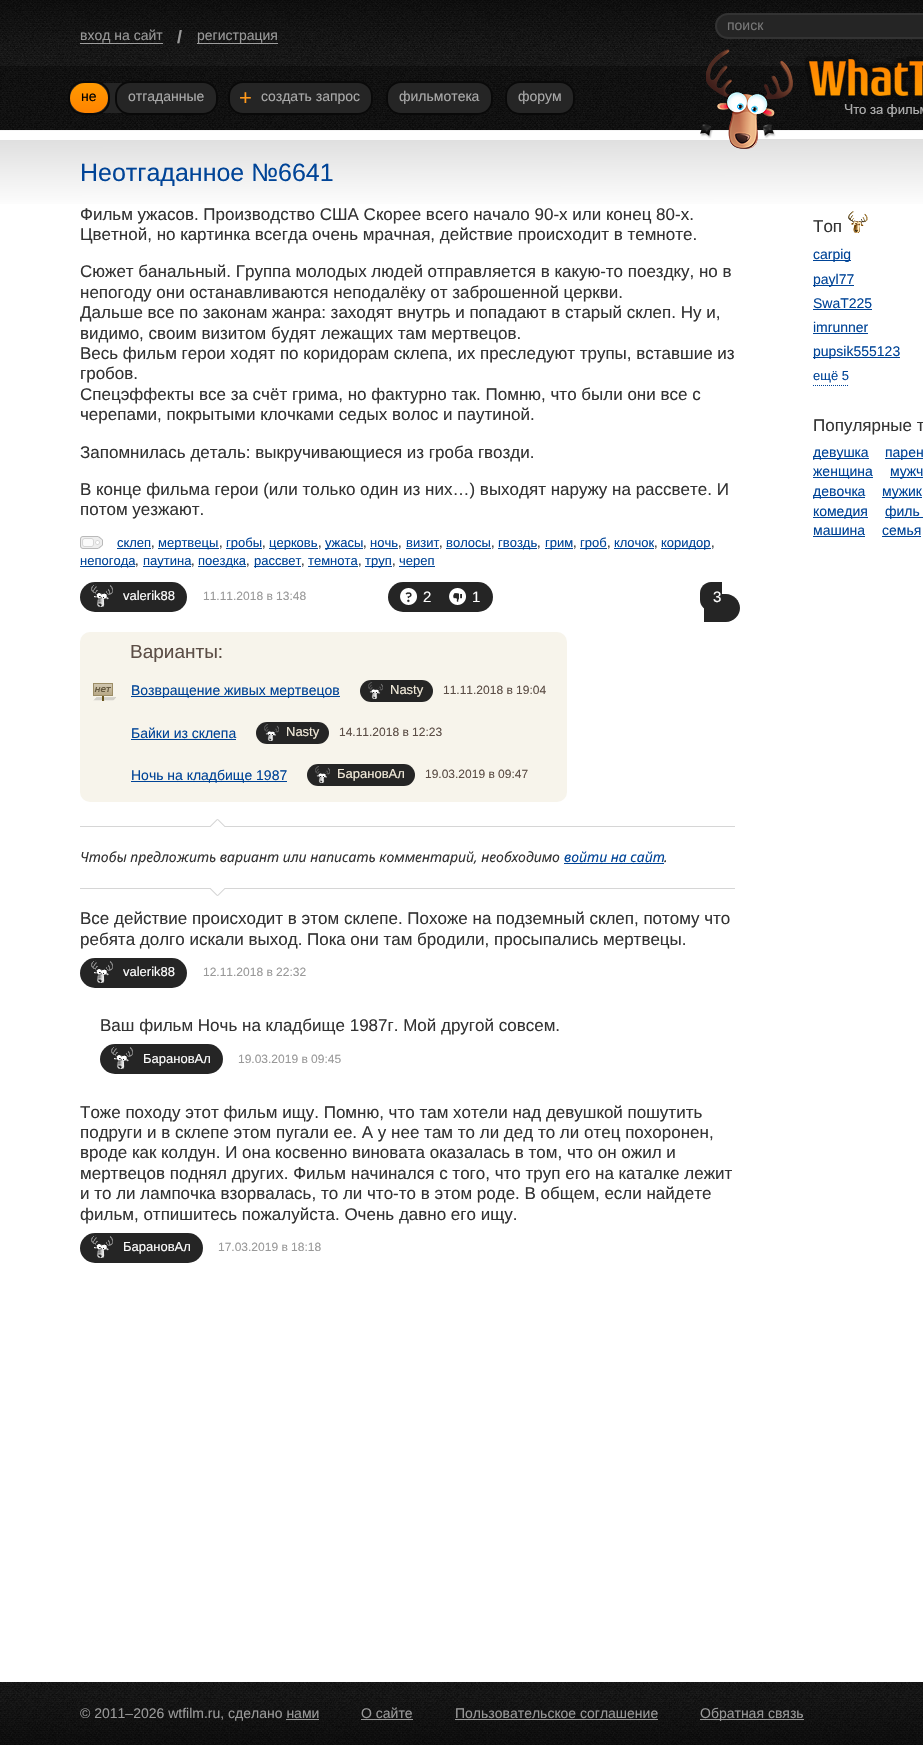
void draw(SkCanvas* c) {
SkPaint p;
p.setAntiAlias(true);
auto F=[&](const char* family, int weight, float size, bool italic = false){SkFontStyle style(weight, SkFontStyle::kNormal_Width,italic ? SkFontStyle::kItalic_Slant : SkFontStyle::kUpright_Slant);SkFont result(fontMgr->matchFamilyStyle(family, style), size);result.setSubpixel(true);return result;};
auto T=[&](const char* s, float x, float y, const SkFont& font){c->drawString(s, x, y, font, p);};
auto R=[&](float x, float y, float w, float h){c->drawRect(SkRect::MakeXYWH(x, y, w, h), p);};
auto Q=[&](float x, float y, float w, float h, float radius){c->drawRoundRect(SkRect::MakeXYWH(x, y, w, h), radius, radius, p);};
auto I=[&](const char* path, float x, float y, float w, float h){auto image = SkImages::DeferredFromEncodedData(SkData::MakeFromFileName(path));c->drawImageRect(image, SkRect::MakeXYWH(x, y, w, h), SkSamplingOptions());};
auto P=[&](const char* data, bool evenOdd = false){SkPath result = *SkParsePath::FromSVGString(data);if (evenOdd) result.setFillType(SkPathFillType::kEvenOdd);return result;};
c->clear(0xffffffff);
{
const SkColor colors[] = {0xffffffff,0xffdfdfdf,0xffffffff};
const float stops[] = {.08,.08,.12};
const SkPoint ends[] = {{567,0}, {568,1745}};
p.setShader(SkGradientShader::MakeLinear(ends, colors, stops, 3, SkTileMode::kClamp));
p.setAlpha(255);
}
R(0,139,923,65);
I("1.png",0,0,923,132);
p.setShader(nullptr);
p.setColor(0xff252525);
c->drawRoundRect(SkRect::MakeXYWH(716,14,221,24),12,12,p);
p.setStroke(true);
p.setStrokeWidth(2);
p.setColor(0xff333333);
c->drawRoundRect(SkRect::MakeXYWH(716,14,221,24),12,12,p);
auto f1 = F("Liberation Sans",400,14);
p.setStroke(false);
p.setColor(0xff777777);
T("поиск",727,30,f1);
p.setColor(0xff999999);
T("вход на сайт",80,40,f1);
p.setColor(0xff9e9e9e);
R(80,43,83,1);
auto f2 = F("Liberation Sans",700,18);
p.setColor(0xff999999);
T("/",177,43,f2);
T("регистрация",197,40,f1);
p.setColor(0xff9e9e9e);
R(197,43,81,1);
p.setColor(0xff252525);
Q(70,83,146,30,15);
c->drawRoundRect(SkRect::MakeXYWH(69,82,40,32),14,14,p);
p.setStroke(true);
p.setColor(0xff090909);
c->drawRoundRect(SkRect::MakeXYWH(69,82,40,32),14,14,p);
p.setStroke(false);
{
const SkColor colors[] = {0xffff9900,0xffff8400};
const float stops[] = {0,1};
const SkPoint ends[] = {{89,83}, {89,113}};
p.setShader(SkGradientShader::MakeLinear(ends, colors, stops, 2, SkTileMode::kClamp));
p.setAlpha(255);
}
Q(70,83,38,30,15);
p.setShader(nullptr);
p.setColor(0xff000000);
T("не",81,101,f1);
p.setColor(0xff252525);
c->drawRoundRect(SkRect::MakeXYWH(116,82,101,32),14,14,p);
p.setStroke(true);
p.setColor(0xff090909);
c->drawRoundRect(SkRect::MakeXYWH(116,82,101,32),14,14,p);
p.setStroke(false);
p.setColor(0xffaaaaaa);
T("отгаданные",128,101,f1);
p.setColor(0xff252525);
c->drawRoundRect(SkRect::MakeXYWH(229,82,143,32),14,14,p);
p.setStroke(true);
p.setColor(0xff090909);
c->drawRoundRect(SkRect::MakeXYWH(229,82,143,32),14,14,p);
auto f3 = F("Liberation Sans",400,22);
p.setStroke(false);
p.setColor(0xffff991b);
T("+",239,105,f3);
p.setColor(0xffaaaaaa);
T("создать запрос",261,101,f1);
p.setColor(0xff252525);
c->drawRoundRect(SkRect::MakeXYWH(387,82,105,32),14,14,p);
p.setStroke(true);
p.setColor(0xff090909);
c->drawRoundRect(SkRect::MakeXYWH(387,82,105,32),14,14,p);
p.setStroke(false);
p.setColor(0xffaaaaaa);
T("фильмотека",399,101,f1);
p.setColor(0xff252525);
c->drawRoundRect(SkRect::MakeXYWH(506,82,68,32),14,14,p);
p.setStroke(true);
p.setColor(0xff090909);
c->drawRoundRect(SkRect::MakeXYWH(506,82,68,32),14,14,p);
p.setStroke(false);
p.setColor(0xffaaaaaa);
T("форум",518,101,f1);
I("2.png",804,54,119,63);
I("3.png",700,49,93,100);
auto f4 = F("Liberation Sans",400,25);
p.setColor(0xff004497);
T("Неотгаданное №6641",80,181,f4);
auto f5 = F("Liberation Sans",400,17);
p.setColor(0xff333333);
T("Фильм ужасов. Производство США Скорее всего начало 90-х или конец 80-х.",80,220,f5);
T("Цветной, но картинка всегда очень мрачная, действие происходит в темноте.",80,240,f5);
T("Сюжет банальный. Группа молодых людей отправляется в какую-то поездку, но в",80,277,f5);
T("непогоду они останавливаются неподалёку от заброшенной церкви.",80,298,f5);
T("Дальше все по законам жанра: заходят внутрь и попадают в старый склеп. Ну и,",80,318,f5);
T("видимо, своим визитом будят лежащих там мертвецов.",80,339,f5);
T("Весь фильм герои ходят по коридорам склепа, их преследуют трупы, вставшие из",80,359,f5);
T("гробов.",80,379,f5);
T("Спецэффекты все за счёт грима, но фактурно так. Помню, что были они все с",80,400,f5);
T("черепами, покрытыми клочками седых волос и паутиной.",80,420,f5);
T("Запомнилась деталь: выкручивающиеся из гроба гвозди.",80,458,f5);
T("В конце фильма герои (или только один из них…) выходят наружу на рассвете. И",80,495,f5);
T("потом уезжают.",80,515,f5);
I("4.png",80,536,23,13);
auto f6 = F("Liberation Sans",400,13);
p.setColor(0xff004497);
T("склеп",117,547,f6);
R(117,548,34,1);
p.setColor(0xff333333);
T(",",151,547,f6);
p.setColor(0xff004497);
R(158,548,61,1);
T("мертвецы",158,547,f6);
p.setColor(0xff333333);
T(",",219,547,f6);
p.setColor(0xff004497);
R(226,548,36,1);
T("гробы",226,547,f6);
p.setColor(0xff333333);
T(",",262,547,f6);
p.setColor(0xff004497);
R(269,548,49,1);
T("церковь",269,547,f6);
p.setColor(0xff333333);
T(",",318,547,f6);
p.setColor(0xff004497);
R(325,548,38,1);
T("ужасы",325,547,f6);
p.setColor(0xff333333);
T(",",363,547,f6);
p.setColor(0xff004497);
T("ночь",370,547,f6);
R(370,548,28,1);
p.setColor(0xff333333);
T(",",398,547,f6);
p.setColor(0xff004497);
T("визит",406,547,f6);
R(406,548,33,1);
p.setColor(0xff333333);
T(",",439,547,f6);
p.setColor(0xff004497);
T("волосы",446,547,f6);
R(446,548,45,1);
p.setColor(0xff333333);
T(",",491,547,f6);
p.setColor(0xff004497);
R(498,548,39,1);
T("гвоздь",498,547,f6);
p.setColor(0xff333333);
T(",",537,547,f6);
p.setColor(0xff004497);
R(545,548,28,1);
T("грим",545,547,f6);
p.setColor(0xff333333);
T(",",573,547,f6);
p.setColor(0xff004497);
R(580,548,27,1);
T("гроб",580,547,f6);
p.setColor(0xff333333);
T(",",607,547,f6);
p.setColor(0xff004497);
T("клочок",614,547,f6);
R(614,548,40,1);
p.setColor(0xff333333);
T(",",654,547,f6);
p.setColor(0xff004497);
R(661,548,50,1);
T("коридор",661,547,f6);
p.setColor(0xff333333);
T(",",711,547,f6);
p.setColor(0xff004497);
R(80,566,55,1);
T("непогода",80,565,f6);
p.setColor(0xff333333);
T(",",135,565,f6);
p.setColor(0xff004497);
R(143,566,48,1);
T("паутина",143,565,f6);
p.setColor(0xff333333);
T(",",191,565,f6);
p.setColor(0xff004497);
R(198,566,48,1);
T("поездка",198,565,f6);
p.setColor(0xff333333);
T(",",246,565,f6);
p.setColor(0xff004497);
R(254,566,47,1);
T("рассвет",254,565,f6);
p.setColor(0xff333333);
T(",",301,565,f6);
p.setColor(0xff004497);
T("темнота",308,565,f6);
R(308,566,50,1);
p.setColor(0xff333333);
T(",",358,565,f6);
p.setColor(0xff004497);
R(365,566,27,1);
T("труп",365,565,f6);
p.setColor(0xff333333);
T(",",392,565,f6);
p.setColor(0xff004497);
R(399,566,36,1);
T("череп",399,565,f6);
p.setColor(0xff252525);
Q(80,582,107,30,15);
I("5.png",91,584,22,23);
p.setColor(0xffffffff);
T("valerik88",123,600,f6);
auto f7 = F("Liberation Sans",400,12);
p.setColor(0xff999999);
T("11.11.2018 в 13:48",203,600,f7);
p.setColor(0xff252525);
Q(388,582,105,30,15);
I("6.png",400,588,17,17);
auto f8 = F("Liberation Sans",400,15);
p.setColor(0xffffffff);
T("2",423,602,f8);
I("7.png",449,588,17,17);
T("1",472,602,f8);
p.setColor(0xff252525);
c->drawPath(P("M711 582h11v29h-11c-6 0-11-5-11-11v-7c0-6 5-11 11-11z"),p);
c->drawPath(P("M704 594h22c7.5 0 14 6.5 14 14c0 7.5-6.5 14-14 14h-22z"),p);
p.setColor(0xffffffff);
T("3",713,602,f8);
p.setColor(0xfff7f4eb);
Q(80,632,487,170,10);
auto f9 = F("Liberation Sans",400,19);
p.setColor(0xff5c4e46);
T("Варианты:",130,658,f9);
I("8.png",93,683,23,18);
p.setColor(0xff004497);
R(131,696,209,1);
T("Возвращение живых мертвецов",131,695,f1);
p.setColor(0xff252525);
Q(360,680,73,22,11);
I("9.png",368,682,15,17);
p.setColor(0xfff2ebda);
T("Nasty",390,694,f6);
p.setColor(0xff5c4e46);
T("11.11.2018 в 19:04",443,694,f7);
p.setColor(0xff004497);
T("Байки из склепа",131,738,f1);
R(131,739,105,1);
p.setColor(0xff252525);
Q(256,722,73,22,11);
I("9.png",264,724,15,17);
p.setColor(0xfff2ebda);
T("Nasty",286,736,f6);
p.setColor(0xff5c4e46);
T("14.11.2018 в 12:23",339,736,f7);
p.setColor(0xff004497);
R(131,781,156,1);
T("Ночь на кладбище 1987",131,780,f1);
p.setColor(0xff252525);
Q(307,764,108,22,11);
I("9.png",315,766,15,17);
p.setColor(0xfff2ebda);
T("БарановАл",337,778,f6);
p.setColor(0xff5c4e46);
T("19.03.2019 в 09:47",425,778,f7);
p.setColor(0xffd6d6d6);
R(80,826,655,1);
R(80,888,655,1);
I("10.png",210,819,15,8);
auto f10 = F("Noto Sans",400,14,true);
p.setColor(0xff333333);
T("Чтобы предложить вариант или написать комментарий, необходимо",80,862,f10);
p.setColor(0xff004497);
T("войти на сайт",564,862,f10);
p.setColor(0xff333333);
T(".",664,862,f10);
p.setColor(0xff004497);
R(564,863,100,1);
I("11.png",210,888,15,8);
p.setColor(0xff333333);
T("Все действие происходит в этом склепе. Похоже на подземный склеп, потому что",80,924,f5);
T("ребята долго искали выход. Пока они там бродили, просыпались мертвецы.",80,945,f5);
p.setColor(0xff252525);
Q(80,958,107,30,15);
I("5.png",91,960,22,23);
p.setColor(0xffffffff);
T("valerik88",123,976,f6);
p.setColor(0xff999999);
T("12.11.2018 в 22:32",203,976,f7);
p.setColor(0xff333333);
T("Ваш фильм Ночь на кладбище 1987г. Мой другой совсем.",100,1031,f5);
p.setColor(0xff252525);
Q(100,1044,123,30,15);
I("5.png",111,1046,22,23);
p.setColor(0xffffffff);
T("БарановАл",143,1063,f6);
p.setColor(0xff999999);
T("19.03.2019 в 09:45",238,1063,f7);
p.setColor(0xff333333);
T("Тоже походу этот фильм ищу. Помню, что там хотели над девушкой пошутить",80,1118,f5);
T("подруги и в склепе этом пугали ее. А у нее там то ли дед то ли отец похоронен,",80,1138,f5);
T("вроде как колдун. И она косвенно виновата оказалась в том, что он ожил и",80,1158,f5);
T("мертвецов поднял других. Фильм начинался с того, что труп его на каталке лежит",80,1179,f5);
T("и то ли лампочка взорвалась, то ли что-то в этом роде. В общем, если найдете",80,1199,f5);
T("фильм, отпишитесь пожалуйста. Очень давно его ищу.",80,1220,f5);
p.setColor(0xff252525);
Q(80,1233,123,30,15);
I("5.png",91,1235,22,23);
p.setColor(0xffffffff);
T("БарановАл",123,1251,f6);
p.setColor(0xff999999);
T("17.03.2019 в 18:18",218,1251,f7);
p.setColor(0xff333333);
T("Топ",813,232,f5);
I("12.png",848,211,20,22);
p.setColor(0xff004497);
R(813,260,38,1);
T("carpig",813,259,f1);
R(813,285,41,1);
T("payl77",813,284,f1);
T("SwaT225",813,308,f1);
R(813,309,59,1);
T("imrunner",813,332,f1);
R(813,333,55,1);
R(813,357,87,1);
T("pupsik555123",813,356,f1);
p.setStroke(true);
p.setStrokeWidth(1);
p.setPathEffect(SkDashPathEffect::Make({{1,1}}, 0));
c->drawPath(P("M813 385.5h36"),p);
p.setPathEffect(nullptr);
p.setStroke(false);
T("ещё 5",813,380,f6);
p.setColor(0xff333333);
T("Популярные т",813,431,f5);
p.setColor(0xff004497);
R(813,458,56,1);
T("девушка",813,457,f1);
R(885,458,38,1);
T("парен",885,457,f1);
R(813,477,60,1);
T("женщина",813,476,f1);
R(890,477,33,1);
T("мужч",890,476,f1);
R(813,497,52,1);
T("девочка",813,496,f1);
R(882,497,40,1);
T("мужик",882,496,f1);
R(813,517,55,1);
T("комедия",813,516,f1);
R(885,517,38,1);
T("филь",885,516,f1);
T("машина",813,535,f1);
R(813,536,52,1);
T("семья",882,535,f1);
R(882,536,39,1);
I("13.png",0,1682,923,63);
p.setColor(0xff999999);
T("© 2011–2026 wtfilm.ru, сделано нами",80,1718,f1);
T("О сайте",361,1718,f1);
R(361,1719,52,1);
T("Пользовательское соглашение",455,1718,f1);
R(455,1719,203,1);
R(700,1719,104,1);
T("Обратная связь",700,1718,f1);
R(286,1719,33,1);
}
